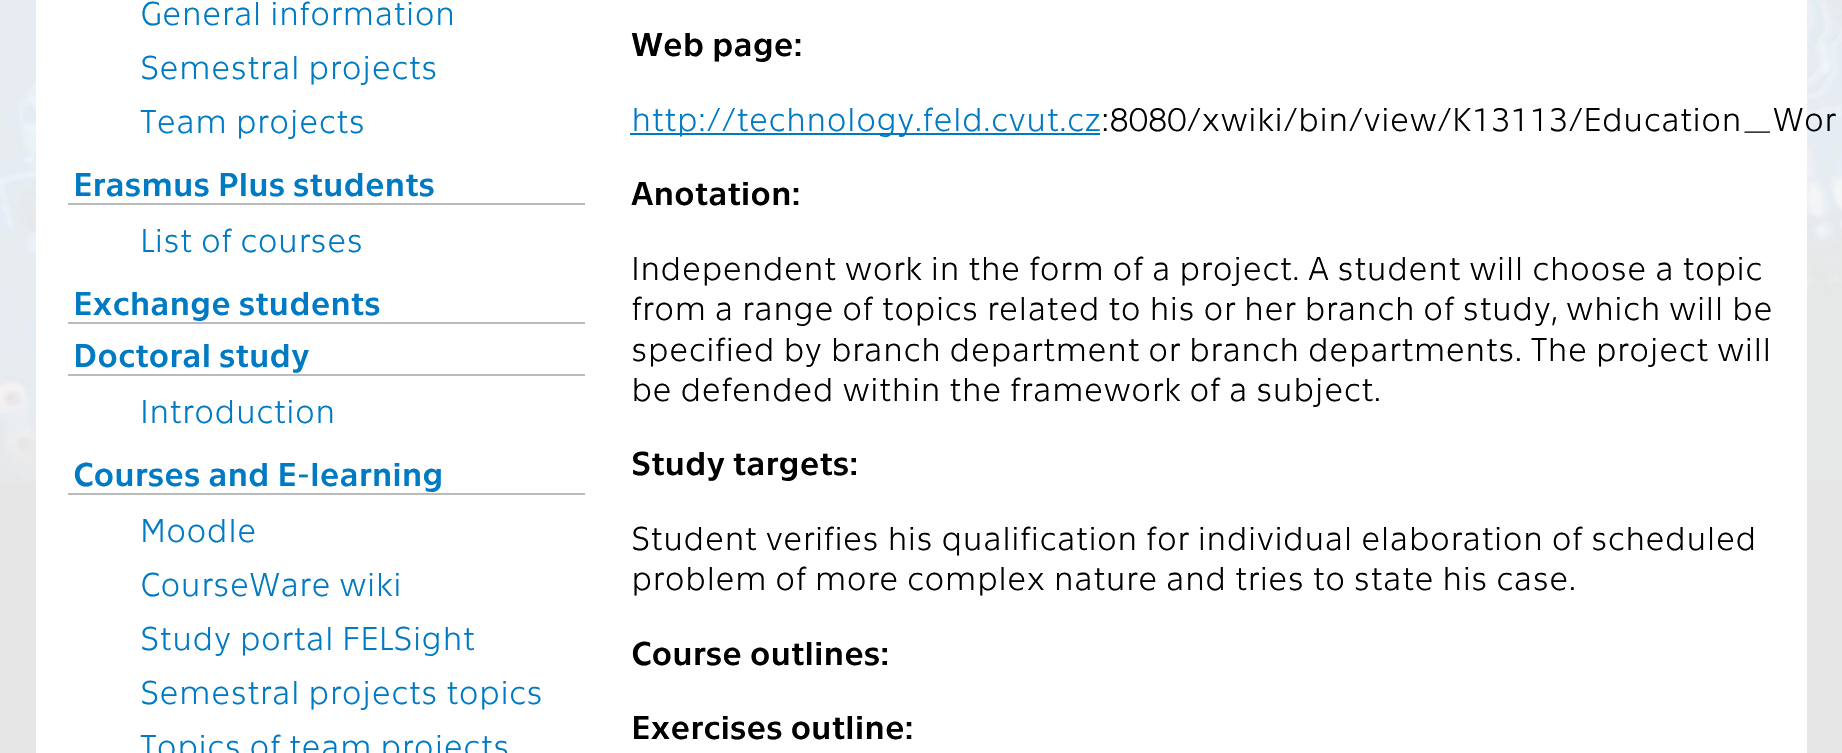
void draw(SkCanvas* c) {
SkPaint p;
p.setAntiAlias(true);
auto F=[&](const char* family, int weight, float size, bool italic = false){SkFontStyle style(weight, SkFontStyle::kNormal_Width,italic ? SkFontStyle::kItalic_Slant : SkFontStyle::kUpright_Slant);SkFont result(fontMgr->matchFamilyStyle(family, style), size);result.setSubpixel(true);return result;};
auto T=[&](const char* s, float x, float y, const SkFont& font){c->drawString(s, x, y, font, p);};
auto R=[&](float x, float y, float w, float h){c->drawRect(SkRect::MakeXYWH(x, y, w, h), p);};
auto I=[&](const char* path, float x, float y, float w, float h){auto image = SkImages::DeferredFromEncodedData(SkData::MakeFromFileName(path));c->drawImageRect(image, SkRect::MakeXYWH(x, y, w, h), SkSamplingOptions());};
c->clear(0xffe6e6e6);
I("1.png",0,0,1842,483);
p.setColor(0xffffffff);
R(36,0,1771,753);
auto f1 = F("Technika",300,33.85);
p.setColor(0xff007ac3);
T("General information",140,25,f1);
T("Semestral projects",140,79,f1);
T("Team projects",140,133,f1);
p.setColor(0xffbbbbbb);
R(68,203,517,2);
auto f2 = F("Technika",400,33.85);
p.setColor(0xff007ac3);
T("Erasmus Plus students",73,196,f2);
T("List of courses",140,252,f1);
p.setColor(0xffbbbbbb);
R(68,322,517,2);
p.setColor(0xff007ac3);
T("Exchange students",73,315,f2);
p.setColor(0xffbbbbbb);
R(68,374,517,2);
p.setColor(0xff007ac3);
T("Doctoral study",73,367,f2);
T("Introduction",140,423,f1);
p.setColor(0xffbbbbbb);
R(68,493,517,2);
p.setColor(0xff007ac3);
T("Courses and E-learning",73,486,f2);
T("Moodle",140,542,f1);
T("CourseWare wiki",140,596,f1);
T("Study portal FELSight",140,650,f1);
T("Semestral projects topics",140,704,f1);
T("Topics of team projects",140,758,f1);
p.setColor(0xff000000);
T("Web page:",631,56,f2);
p.setColor(0xff007ac3);
R(630,133,470,2);
T("http://technology.feld.cvut.cz",631,131,f1);
p.setColor(0xff000000);
T(":8080/xwiki/bin/view/K13113/Education_Wor",1101,131,f1);
T("Anotation:",631,205,f2);
T("Independent work in the form of a project. A student will choose a topic",631,280,f1);
T("from a range of topics related to his or her branch of study, which will be",631,320,f1);
T("specified by branch department or branch departments. The project will",631,361,f1);
T("be defended within the framework of a subject.",631,401,f1);
T("Study targets:",631,475,f2);
T("Student verifies his qualification for individual elaboration of scheduled",631,550,f1);
T("problem of more complex nature and tries to state his case.",631,590,f1);
T("Course outlines:",631,665,f2);
T("Exercises outline:",631,739,f2);
}
